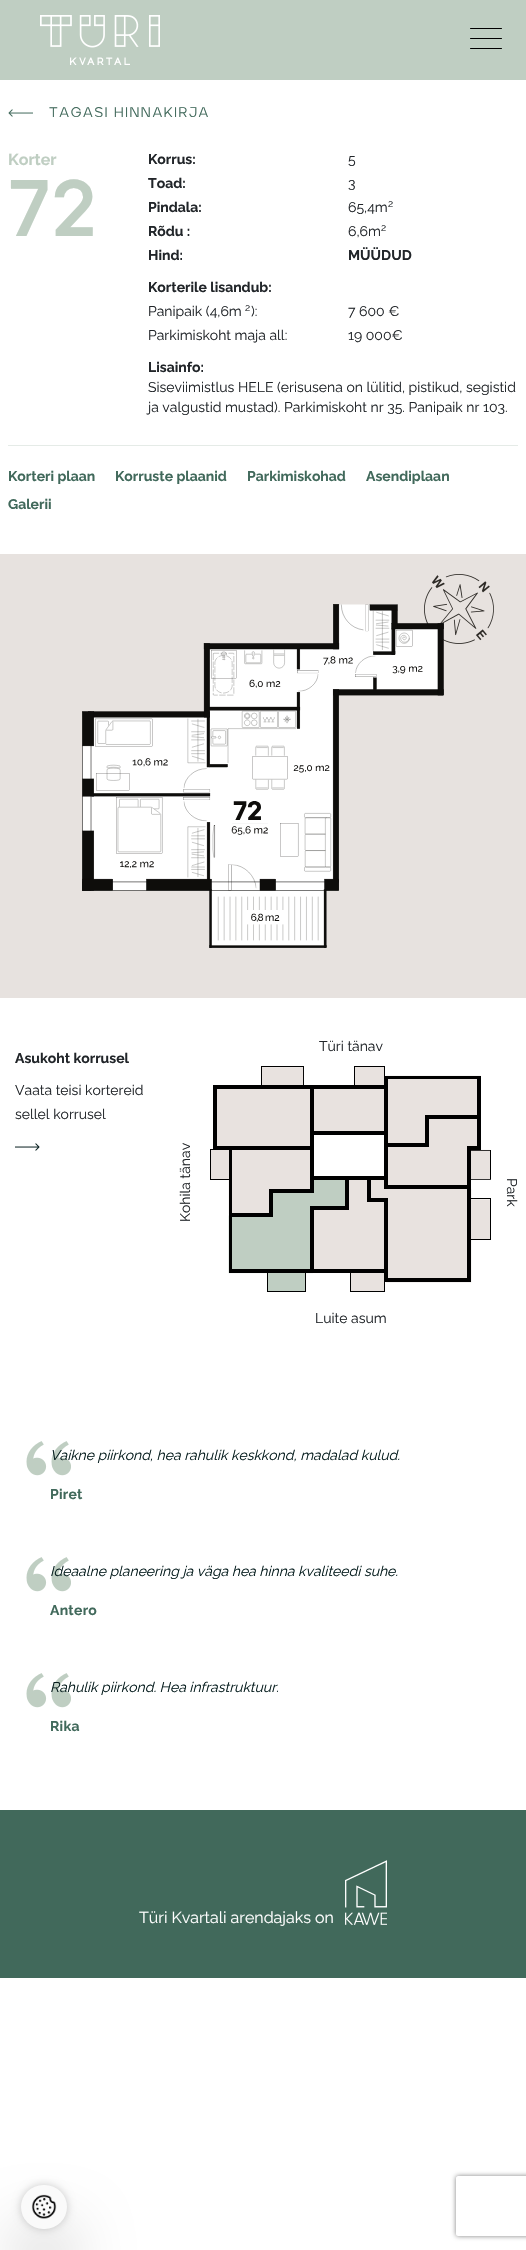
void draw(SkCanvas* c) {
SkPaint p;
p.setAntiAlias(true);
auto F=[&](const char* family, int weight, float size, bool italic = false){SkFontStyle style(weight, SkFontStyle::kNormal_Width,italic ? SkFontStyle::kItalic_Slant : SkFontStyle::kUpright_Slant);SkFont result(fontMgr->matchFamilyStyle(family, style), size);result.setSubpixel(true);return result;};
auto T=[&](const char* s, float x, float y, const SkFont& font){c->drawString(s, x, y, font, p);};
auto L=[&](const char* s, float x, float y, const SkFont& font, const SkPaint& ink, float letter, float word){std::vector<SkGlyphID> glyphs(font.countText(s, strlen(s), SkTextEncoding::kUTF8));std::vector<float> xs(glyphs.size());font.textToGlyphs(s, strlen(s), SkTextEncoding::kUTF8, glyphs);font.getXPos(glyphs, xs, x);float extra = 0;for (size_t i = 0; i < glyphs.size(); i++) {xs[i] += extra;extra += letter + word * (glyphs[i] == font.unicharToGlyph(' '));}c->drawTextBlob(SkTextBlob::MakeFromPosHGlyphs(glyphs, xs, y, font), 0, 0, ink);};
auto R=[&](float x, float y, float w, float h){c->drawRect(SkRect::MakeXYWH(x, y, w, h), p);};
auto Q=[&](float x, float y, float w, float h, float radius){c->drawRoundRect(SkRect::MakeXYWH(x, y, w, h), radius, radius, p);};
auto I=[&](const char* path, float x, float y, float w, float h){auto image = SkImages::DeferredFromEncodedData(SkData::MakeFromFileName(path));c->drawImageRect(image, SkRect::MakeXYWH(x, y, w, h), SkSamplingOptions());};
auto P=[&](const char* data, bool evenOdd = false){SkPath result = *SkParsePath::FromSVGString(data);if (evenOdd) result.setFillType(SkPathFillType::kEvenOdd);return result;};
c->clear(0xffffffff);
p.setColor(0xffbfcec2);
R(0,0,526,80);
I("1.png",40,15,120,50);
p.setColor(0xff000000);
Q(470,38,32,1,.5);
Q(470,28,32,1,.5);
Q(470,48,32,1,.5);
I("2.png",8,109,25,8);
auto f1 = F("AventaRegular",400,14);
p.setColor(0xff41695b);
L("TAGASI HINNAKIRJA",49,117,f1,p,1.4,0);
auto f2 = F("Raleway",700,16);
p.setColor(0xffbfcec2);
T("Korter",8,165,f2);
auto f3 = F("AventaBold",700,80);
L("72",8,236,f3,p,2,0);
auto f4 = F("Raleway",700,14);
p.setColor(0xff212529);
T("Korrus:",148,164,f4);
auto f5 = F("Raleway",400,14);
T("5",348,164,f5);
T("Toad:",148,188,f4);
T("3",348,188,f5);
T("Pindala:",148,212,f4);
T("65,4m",348,212,f5);
auto f6 = F("Raleway",400,10);
T("2",388,207,f6);
T("Rõdu :",148,236,f4);
T("6,6m",348,236,f5);
T("2",381,231,f6);
T("Hind:",148,260,f4);
T("MÜÜDUD",348,260,f4);
T("Korterile lisandub:",148,292,f4);
T("Panipaik (4,6m",148,316,f5);
T("2",245,311,f6);
T("):",251,316,f5);
T("7 600 €",348,316,f5);
T("Parkimiskoht maja all:",148,340,f5);
T("19 000€",348,340,f5);
T("Lisainfo:",148,372,f4);
T("Siseviimistlus HELE (erisusena on lülitid, pistikud, segistid",148,392,f5);
T("ja valgustid mustad). Parkimiskoht nr 35. Panipaik nr 103.",148,412,f5);
p.setColor(0xffe5ebe7);
R(8,445,510,1);
p.setColor(0xff41695b);
T("Korteri plaan",8,481,f4);
T("Korruste plaanid",115,481,f4);
T("Parkimiskohad",247,481,f4);
T("Asendiplaan",366,481,f4);
T("Galerii",8,509,f4);
p.setColor(0xffe7e2df);
R(0,554,526,444);
I("4.png",424,574,70,70);
I("3.png",82,604,362,344);
p.setColor(0xff212529);
T("Asukoht korrusel",15,1063,f4);
T("Vaata teisi kortereid",15,1095,f5);
T("sellel korrusel",15,1119,f5);
I("5.png",15,1143,25,8);
T("Türi tänav",319,1051,f5);
c->save();
c->rotate(-90,190,1222);
T("Kohila tänav",190,1222,f5);
c->restore();
I("6.png",210,1066,281,226);
c->save();
c->rotate(90,507,1178);
T("Park",507,1178,f5);
c->restore();
T("Luite asum",315,1323,f5);
I("7.png",26,1441,45,35);
auto f7 = F("Raleway",400,14,true);
p.setColor(0xff061d1e);
T("Vaikne piirkond, hea rahulik keskkond, madalad kulud.",50,1460,f7);
p.setColor(0xff41695b);
L("Piret",50,1499,f4,p,.25,0);
I("7.png",26,1557,45,35);
p.setColor(0xff061d1e);
T("Ideaalne planeering ja väga hea hinna kvaliteedi suhe.",50,1576,f7);
p.setColor(0xff41695b);
L("Antero",50,1615,f4,p,.25,0);
I("7.png",26,1673,45,35);
p.setColor(0xff061d1e);
T("Rahulik piirkond. Hea infrastruktuur.",50,1692,f7);
p.setColor(0xff41695b);
L("Rika",50,1731,f4,p,.25,0);
R(0,1810,526,168);
auto f8 = F("Raleway",400,16);
p.setColor(0xffffffff);
T("Türi Kvartali arendajaks on",139,1923,f8);
I("8.png",345,1860,42,65);
p.setColor(0x4d000000);
p.setMaskFilter(SkMaskFilter::MakeBlur(kNormal_SkBlurStyle, 32));
c->drawRoundRect(SkRect::MakeXYWH(21,2233,46,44),22,22,p);
p.setMaskFilter(nullptr);
p.setColor(0x33000000);
p.setMaskFilter(SkMaskFilter::MakeBlur(kNormal_SkBlurStyle, 4));
c->drawRoundRect(SkRect::MakeXYWH(21,2185,46,44),22,22,p);
p.setMaskFilter(nullptr);
p.setColor(0xfffafafa);
Q(21,2185,46,44,22);
I("9.png",31,2194,26,25);
c->save();
c->clipPath(P("M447 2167h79v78h-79zm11 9h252c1 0 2 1 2 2v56c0 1-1 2-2 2h-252c-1 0-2-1-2-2v-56c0-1 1-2 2-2z",true),true);
p.setColor(0xff808080);
p.setMaskFilter(SkMaskFilter::MakeBlur(kNormal_SkBlurStyle, 2.5));
c->drawRoundRect(SkRect::MakeXYWH(456,2176,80,60),2,2,p);
p.setMaskFilter(nullptr);
c->restore();
}
